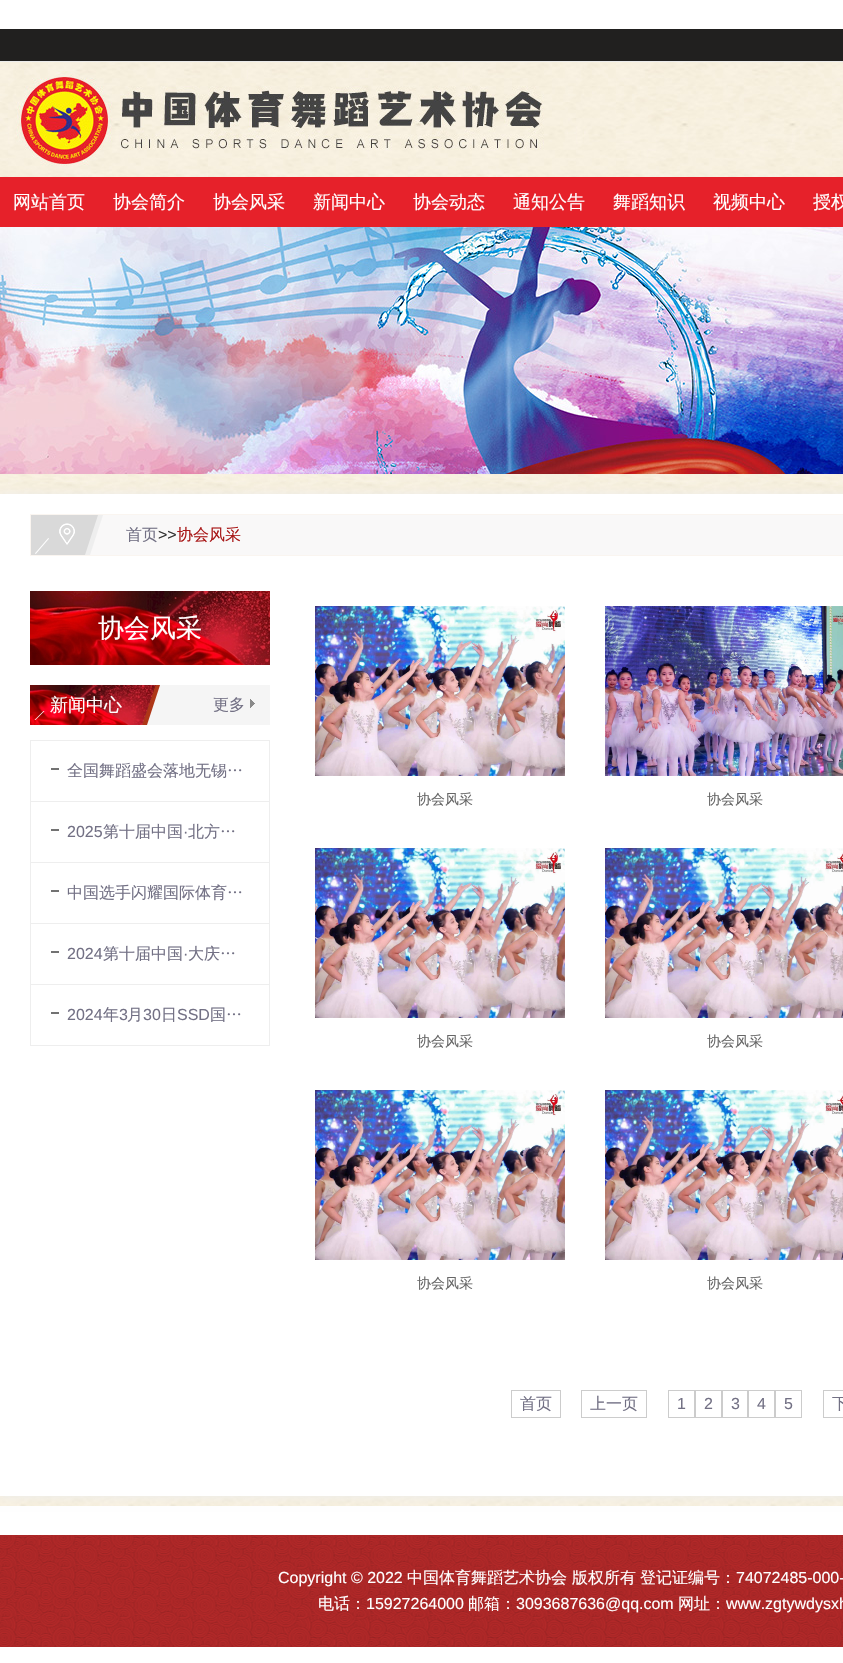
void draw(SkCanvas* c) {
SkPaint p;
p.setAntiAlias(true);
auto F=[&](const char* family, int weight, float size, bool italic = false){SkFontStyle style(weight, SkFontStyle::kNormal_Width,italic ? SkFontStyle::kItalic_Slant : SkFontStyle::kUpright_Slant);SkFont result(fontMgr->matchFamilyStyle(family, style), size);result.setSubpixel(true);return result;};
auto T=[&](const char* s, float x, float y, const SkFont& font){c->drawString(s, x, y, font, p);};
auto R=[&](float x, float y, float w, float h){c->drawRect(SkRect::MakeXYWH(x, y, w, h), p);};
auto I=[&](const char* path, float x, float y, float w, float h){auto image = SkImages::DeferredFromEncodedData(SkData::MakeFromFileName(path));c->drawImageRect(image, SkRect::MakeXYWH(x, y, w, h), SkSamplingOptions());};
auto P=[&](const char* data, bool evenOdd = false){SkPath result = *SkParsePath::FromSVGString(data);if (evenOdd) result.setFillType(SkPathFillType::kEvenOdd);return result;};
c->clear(0xffffffff);
p.setColor(0xff21201f);
R(0,29,843,32);
p.setColor(0xffececec);
R(0,61,843,1);
I("1.png",0,62,843,115);
p.setColor(0xffe6212a);
R(0,177,843,50);
auto f1 = F("WenQuanYi Zen Hei",500,18);
p.setColor(0xffffffff);
T("网站首页",13,208,f1);
T("协会简介",113,208,f1);
T("协会风采",213,208,f1);
T("新闻中心",313,208,f1);
T("协会动态",413,208,f1);
T("通知公告",513,208,f1);
T("舞蹈知识",613,208,f1);
T("视频中心",713,208,f1);
T("授权",813,208,f1);
I("2.png",0,227,843,247);
I("3.png",0,474,843,1032);
p.setColor(0xffeeeeee);
p.setMaskFilter(SkMaskFilter::MakeBlur(kNormal_SkBlurStyle, 5));
c->drawRect(SkRect::MakeXYWH(0,495,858,1002),p);
p.setMaskFilter(nullptr);
p.setColor(0xffffffff);
R(0,494,843,1002);
p.setColor(0xfff9f8f8);
R(90,515,753,40);
p.setStroke(true);
p.setStrokeWidth(1);
p.setColor(0xfffaf5f0);
c->drawRect(SkRect::MakeXYWH(30.5,514.5,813,41),p);
I("4.png",31,515,72,40);
auto f2 = F("WenQuanYi Zen Hei",500,16);
p.setStroke(false);
p.setColor(0xff727084);
T("首页",126,540,f2);
auto f3 = F("Liberation Sans",400,16);
p.setColor(0xff333333);
T(">>",158,540,f3);
p.setColor(0xffa91818);
T("协会风采",177,540,f2);
I("5.png",30,591,240,74);
auto f4 = F("WenQuanYi Zen Hei",500,26);
p.setColor(0xffffffff);
T("协会风采",98,637,f4);
p.setColor(0xfff5f5f5);
R(147,685,123,40);
I("6.png",30,685,130,40);
p.setColor(0xffffffff);
T("新闻中心",50,711,f1);
c->drawPath(P("M43.5 711h1l-9 9h-1z"),p);
I("7.png",250,699,5,9);
p.setColor(0xff727084);
T("更多",213,710,f2);
p.setColor(0xffeeeeee);
R(30,1045,240,1);
R(30,740,240,1);
R(269,740,1,61);
R(30,740,1,61);
p.setColor(0xff727272);
R(51,768,8,2);
p.setColor(0xff727084);
T("全国舞蹈盛会落地无锡…",67,776,f2);
p.setColor(0xffeeeeee);
R(30,801,240,1);
R(269,801,1,61);
R(30,801,1,61);
p.setColor(0xff727272);
R(51,829,8,2);
p.setColor(0xff727084);
T("2025",67,837,f3);
T("第十届中国",103,837,f2);
T("·",183,837,f3);
T("北方…",188,837,f2);
p.setColor(0xffeeeeee);
R(30,862,240,1);
R(269,862,1,61);
R(30,862,1,61);
p.setColor(0xff727272);
R(51,890,8,2);
p.setColor(0xff727084);
T("中国选手闪耀国际体育…",67,898,f2);
p.setColor(0xffeeeeee);
R(30,923,240,1);
R(269,923,1,61);
R(30,923,1,61);
p.setColor(0xff727272);
R(51,951,8,2);
p.setColor(0xff727084);
T("2024",67,959,f3);
T("第十届中国",103,959,f2);
T("·",183,959,f3);
T("大庆…",188,959,f2);
p.setColor(0xffeeeeee);
R(30,984,240,1);
R(269,984,1,61);
R(30,984,1,61);
p.setColor(0xff727272);
R(51,1012,8,2);
p.setColor(0xff727084);
T("2024",67,1020,f3);
T("年",103,1020,f2);
T("3",119,1020,f3);
T("月",127,1020,f2);
T("30",143,1020,f3);
T("日",161,1020,f2);
T("SSD",177,1020,f3);
T("国…",210,1020,f2);
I("8.png",315,606,250,170);
auto f5 = F("WenQuanYi Zen Hei",500,14);
p.setColor(0xff666666);
T("协会风采",417,804,f5);
I("9.png",605,606,238,170);
T("协会风采",707,804,f5);
I("8.png",315,848,250,170);
T("协会风采",417,1046,f5);
I("10.png",605,848,238,170);
T("协会风采",707,1046,f5);
I("8.png",315,1090,250,170);
T("协会风采",417,1288,f5);
I("10.png",605,1090,238,170);
T("协会风采",707,1288,f5);
p.setStroke(true);
p.setColor(0xffcccccc);
c->drawRect(SkRect::MakeXYWH(511.5,1390.5,49,27),p);
p.setStroke(false);
p.setColor(0xff727084);
T("首页",520,1409,f2);
p.setStroke(true);
p.setColor(0xffcccccc);
c->drawRect(SkRect::MakeXYWH(581.5,1390.5,65,27),p);
p.setStroke(false);
p.setColor(0xff727084);
T("上一页",590,1409,f2);
p.setStroke(true);
p.setColor(0xffcccccc);
c->drawRect(SkRect::MakeXYWH(668.5,1390.5,26,27),p);
p.setStroke(false);
p.setColor(0xff727084);
T("1",677,1409,f3);
p.setStroke(true);
p.setColor(0xffcccccc);
c->drawRect(SkRect::MakeXYWH(695.5,1390.5,26,27),p);
p.setStroke(false);
p.setColor(0xff727084);
T("2",704,1409,f3);
p.setStroke(true);
p.setColor(0xffcccccc);
c->drawRect(SkRect::MakeXYWH(722.5,1390.5,25,27),p);
p.setStroke(false);
p.setColor(0xff727084);
T("3",731,1409,f3);
p.setStroke(true);
p.setColor(0xffcccccc);
c->drawRect(SkRect::MakeXYWH(748.5,1390.5,26,27),p);
p.setStroke(false);
p.setColor(0xff727084);
T("4",757,1409,f3);
p.setStroke(true);
p.setColor(0xffcccccc);
c->drawRect(SkRect::MakeXYWH(775.5,1390.5,26,27),p);
p.setStroke(false);
p.setColor(0xff727084);
T("5",784,1409,f3);
p.setStroke(true);
p.setColor(0xffcccccc);
c->drawRect(SkRect::MakeXYWH(823.5,1390.5,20,27),p);
p.setStroke(false);
p.setColor(0xff727084);
T("下",832,1409,f2);
I("11.png",0,1535,843,112);
p.setColor(0xffffffff);
T("Copyright © 2022",278,1583,f3);
T("中国体育舞蹈艺术协会",407,1583,f2);
T("版权所有",572,1583,f2);
T("登记证编号：",640,1583,f2);
T("74072485-000-",736,1583,f3);
T("电话：",318,1609,f2);
T("15927264000",366,1609,f3);
T("邮箱：",468,1609,f2);
T("3093687636@qq.com",516,1609,f3);
T("网址：",678,1609,f2);
T("www.zgtywdysxh",726,1609,f3);
}
